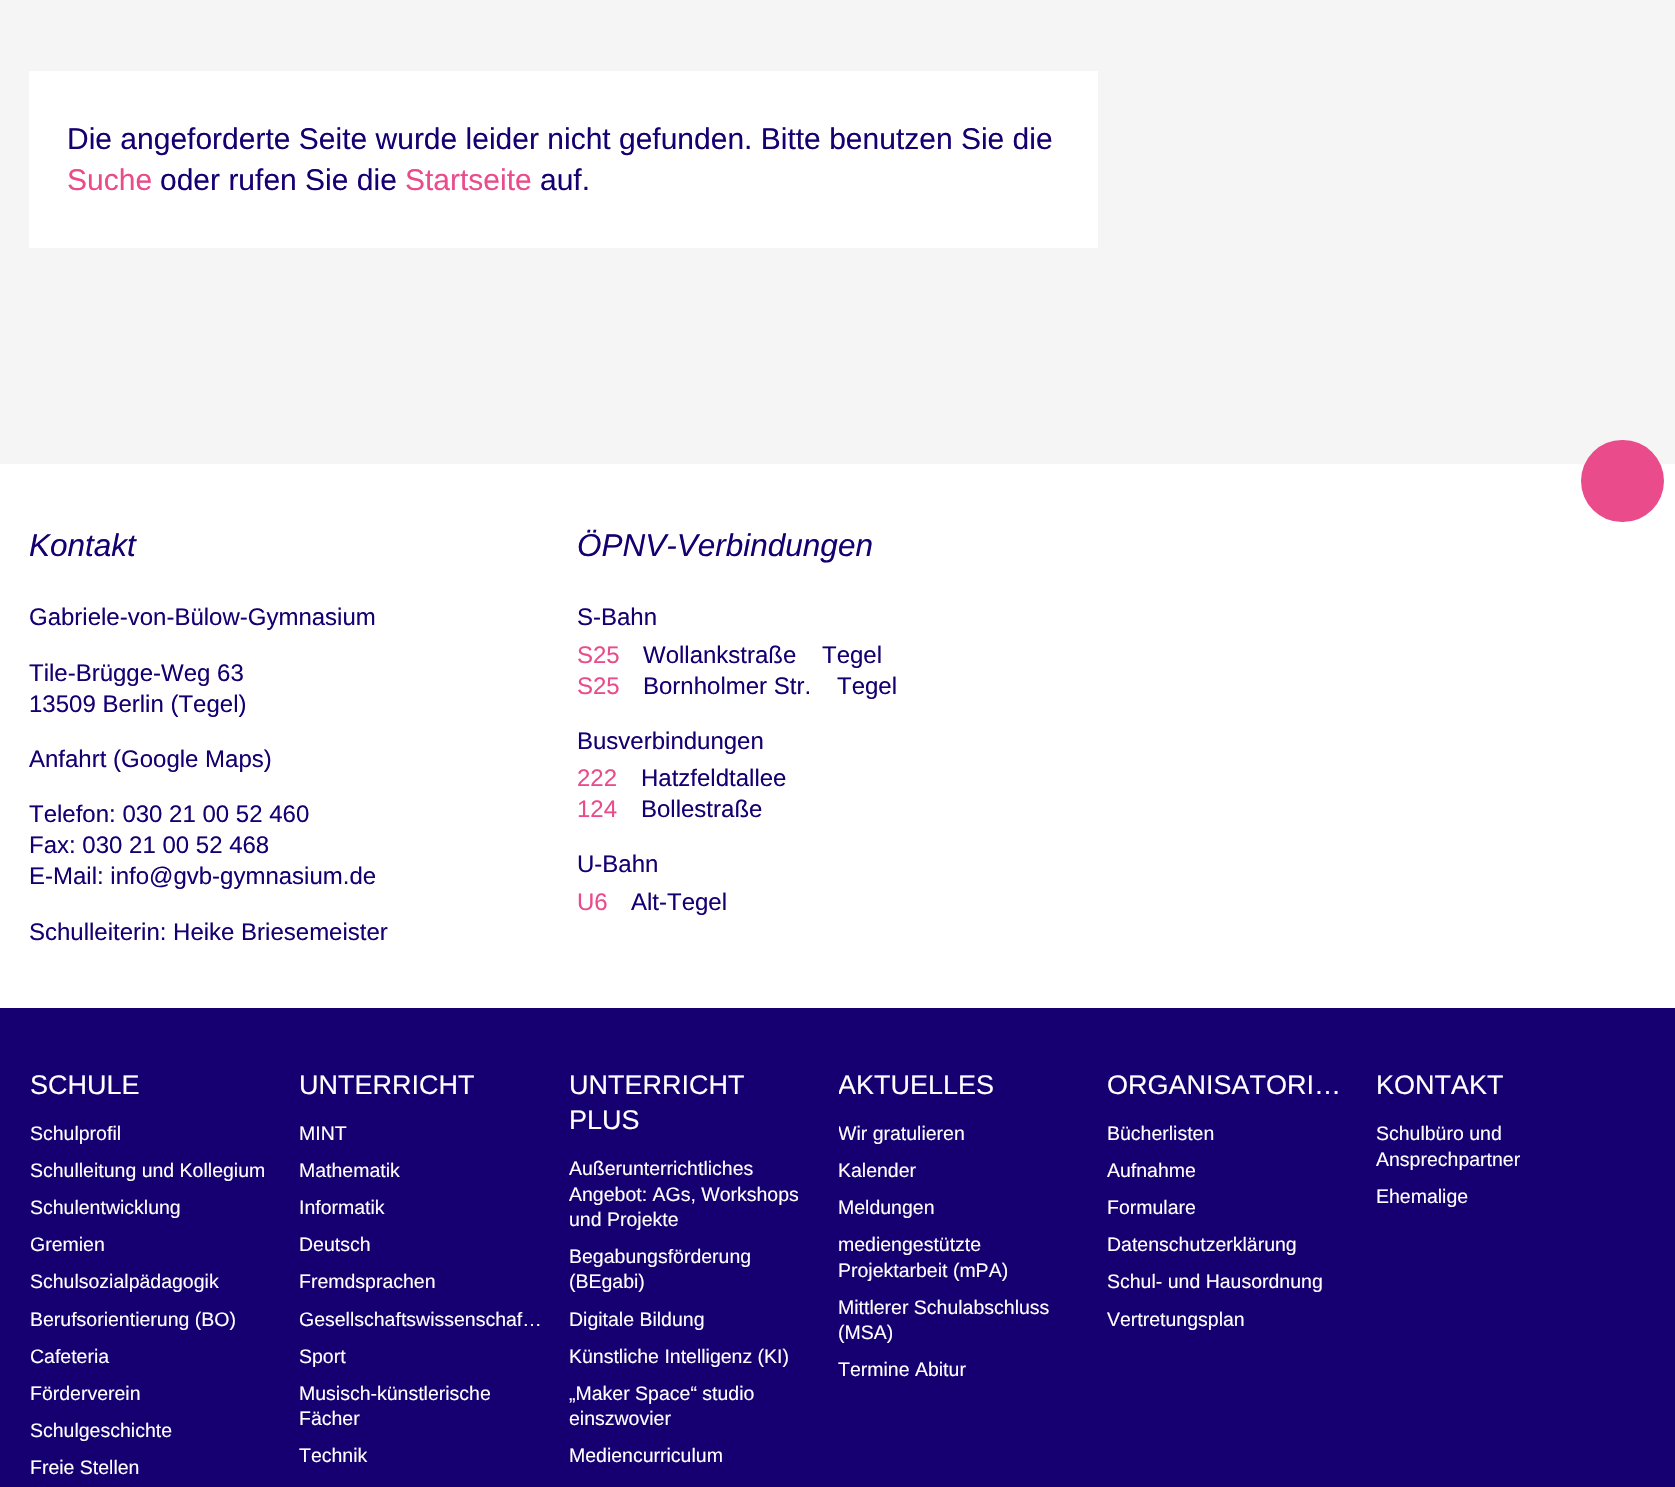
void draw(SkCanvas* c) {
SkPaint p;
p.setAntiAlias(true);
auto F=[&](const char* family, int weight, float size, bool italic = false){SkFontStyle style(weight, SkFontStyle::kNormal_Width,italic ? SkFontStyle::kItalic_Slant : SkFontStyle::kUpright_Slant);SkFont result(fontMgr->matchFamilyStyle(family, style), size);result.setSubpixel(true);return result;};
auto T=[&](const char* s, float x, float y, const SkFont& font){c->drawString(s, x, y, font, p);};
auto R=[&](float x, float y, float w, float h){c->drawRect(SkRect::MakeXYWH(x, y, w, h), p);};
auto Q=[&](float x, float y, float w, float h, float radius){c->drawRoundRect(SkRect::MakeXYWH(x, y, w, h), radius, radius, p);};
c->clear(0xfff5f5f5);
p.setColor(0xffffffff);
R(29,71,1069,177);
auto f1 = F("Liberation Sans",400,30);
p.setColor(0xff160071);
T("Die angeforderte Seite wurde leider nicht gefunden. Bitte benutzen Sie die",67,149,f1);
p.setColor(0xffe94b8b);
T("Suche",67,190,f1);
p.setColor(0xff160071);
T("oder rufen Sie die",160,190,f1);
p.setColor(0xffe94b8b);
T("Startseite",405,190,f1);
p.setColor(0xff160071);
T("auf.",540,190,f1);
p.setColor(0xffffffff);
R(0,464,1675,544);
p.setColor(0xffe94b8b);
Q(1581,440,83,82,41);
auto f2 = F("Liberation Sans",400,31.5,true);
p.setColor(0xff160071);
T("Kontakt",29,556,f2);
auto f3 = F("Liberation Sans",400,24);
T("Gabriele-von-Bülow-Gymnasium",29,625,f3);
T("Tile-Brügge-Weg 63",29,681,f3);
T("13509 Berlin (Tegel)",29,712,f3);
T("Anfahrt (Google Maps)",29,767,f3);
T("Telefon: 030 21 00 52 460",29,822,f3);
T("Fax: 030 21 00 52 468",29,853,f3);
T("E-Mail: info@gvb-gymnasium.de",29,884,f3);
T("Schulleiterin: Heike Briesemeister",29,940,f3);
T("ÖPNV-Verbindungen",577,556,f2);
T("S-Bahn",577,625,f3);
p.setColor(0xffe94b8b);
T("S25",577,663,f3);
p.setColor(0xff160071);
T("Wollankstraße",643,663,f3);
T("Tegel",822,663,f3);
p.setColor(0xffe94b8b);
T("S25",577,694,f3);
p.setColor(0xff160071);
T("Bornholmer Str.",643,694,f3);
T("Tegel",837,694,f3);
T("Busverbindungen",577,749,f3);
p.setColor(0xffe94b8b);
T("222",577,786,f3);
p.setColor(0xff160071);
T("Hatzfeldtallee",641,786,f3);
p.setColor(0xffe94b8b);
T("124",577,817,f3);
p.setColor(0xff160071);
T("Bollestraße",641,817,f3);
T("U-Bahn",577,872,f3);
p.setColor(0xffe94b8b);
T("U6",577,910,f3);
p.setColor(0xff160071);
T("Alt-Tegel",631,910,f3);
R(0,1008,1675,479);
auto f4 = F("Liberation Sans",400,27);
p.setColor(0xffffffff);
T("SCHULE",30,1094,f4);
auto f5 = F("Liberation Sans",400,19.5);
T("Schulprofil",30,1140,f5);
T("Schulleitung und Kollegium",30,1177,f5);
T("Schulentwicklung",30,1214,f5);
T("Gremien",30,1251,f5);
T("Schulsozialpädagogik",30,1288,f5);
T("Berufsorientierung (BO)",30,1326,f5);
T("Cafeteria",30,1363,f5);
T("Förderverein",30,1400,f5);
T("Schulgeschichte",30,1437,f5);
T("Freie Stellen",30,1474,f5);
T("UNTERRICHT",299,1094,f4);
T("MINT",299,1140,f5);
T("Mathematik",299,1177,f5);
T("Informatik",299,1214,f5);
T("Deutsch",299,1251,f5);
T("Fremdsprachen",299,1288,f5);
T("Gesellschaftswissenschaf…",299,1326,f5);
T("Sport",299,1363,f5);
T("Musisch-künstlerische",299,1400,f5);
T("Fächer",299,1425,f5);
T("Technik",299,1462,f5);
T("UNTERRICHT",569,1094,f4);
T("PLUS",569,1129,f4);
T("Außerunterrichtliches",569,1175,f5);
T("Angebot: AGs, Workshops",569,1201,f5);
T("und Projekte",569,1226,f5);
T("Begabungsförderung",569,1263,f5);
T("(BEgabi)",569,1288,f5);
T("Digitale Bildung",569,1326,f5);
T("Künstliche Intelligenz (KI)",569,1363,f5);
T("„Maker Space“ studio",569,1400,f5);
T("einszwovier",569,1425,f5);
T("Mediencurriculum",569,1462,f5);
c->save();
c->clipRect(SkRect::MakeXYWH(839,1068,244,36));
T("AKTUELLES",838,1094,f4);
c->restore();
c->save();
c->clipRect(SkRect::MakeXYWH(839,1122,244,26));
T("Wir gratulieren",838,1140,f5);
c->restore();
T("Kalender",838,1177,f5);
T("Meldungen",838,1214,f5);
T("mediengestützte",838,1251,f5);
T("Projektarbeit (mPA)",838,1277,f5);
T("Mittlerer Schulabschluss",838,1314,f5);
T("(MSA)",838,1339,f5);
T("Termine Abitur",838,1376,f5);
T("ORGANISATORI…",1107,1094,f4);
T("Bücherlisten",1107,1140,f5);
T("Aufnahme",1107,1177,f5);
T("Formulare",1107,1214,f5);
T("Datenschutzerklärung",1107,1251,f5);
T("Schul- und Hausordnung",1107,1288,f5);
T("Vertretungsplan",1107,1326,f5);
T("KONTAKT",1376,1094,f4);
T("Schulbüro und",1376,1140,f5);
T("Ansprechpartner",1376,1166,f5);
T("Ehemalige",1376,1203,f5);
}
